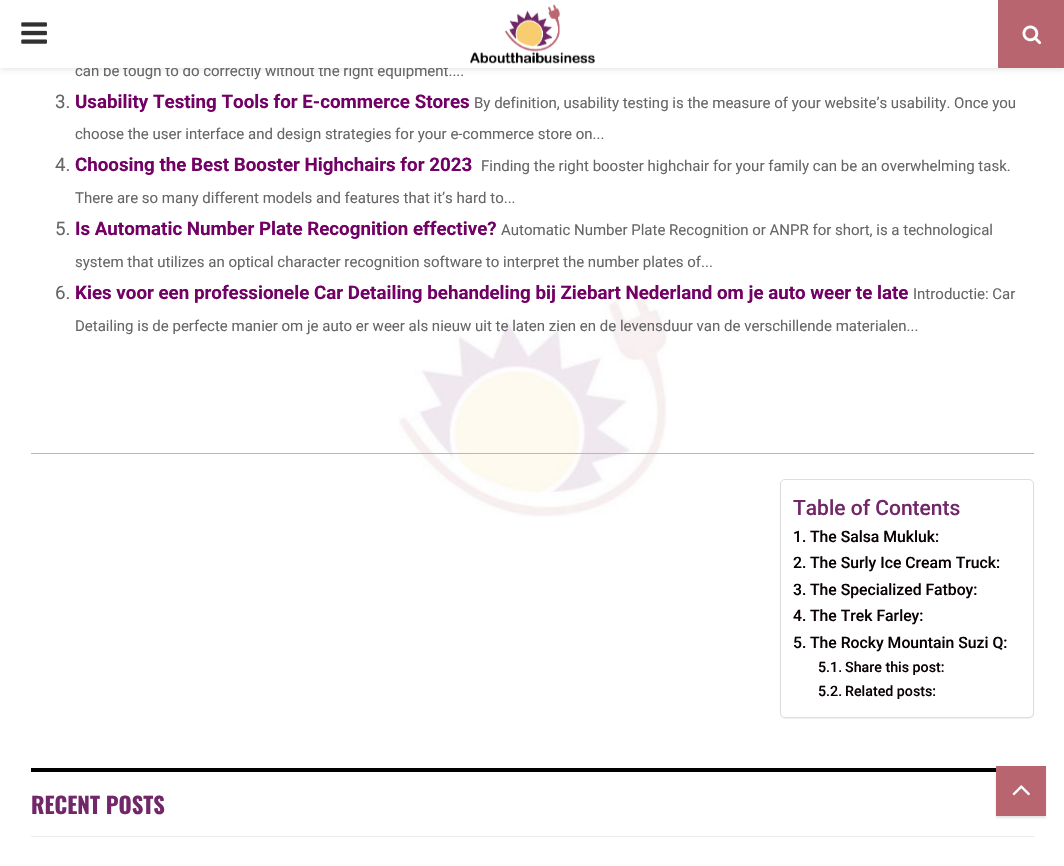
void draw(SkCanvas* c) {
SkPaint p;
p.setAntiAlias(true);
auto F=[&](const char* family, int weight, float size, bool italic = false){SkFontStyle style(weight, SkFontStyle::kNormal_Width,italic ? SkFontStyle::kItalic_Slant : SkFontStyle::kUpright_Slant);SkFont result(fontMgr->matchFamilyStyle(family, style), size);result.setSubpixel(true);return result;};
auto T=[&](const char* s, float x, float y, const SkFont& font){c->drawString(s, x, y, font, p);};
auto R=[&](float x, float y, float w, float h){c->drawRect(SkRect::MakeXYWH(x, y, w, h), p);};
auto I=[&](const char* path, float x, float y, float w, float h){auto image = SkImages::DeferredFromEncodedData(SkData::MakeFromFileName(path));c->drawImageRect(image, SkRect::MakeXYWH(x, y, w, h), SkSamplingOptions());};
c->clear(0xffffffff);
I("1.png",399,291,268,226);
p.setColor(0x75bebebe);
p.setMaskFilter(SkMaskFilter::MakeBlur(kNormal_SkBlurStyle, 3));
c->drawRect(SkRect::MakeXYWH(0,1,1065,68),p);
p.setMaskFilter(nullptr);
auto f1 = F("Roboto",400,15);
p.setColor(0xff666666);
T("can be tough to do correctly without the right equipment....",75,76,f1);
p.setColor(0xffffffff);
R(0,0,998,68);
I("2.png",21,22,26,22);
I("3.png",470,4,125,60);
p.setColor(0xffb9656f);
R(998,0,66,68);
I("4.png",1022,25,20,20);
auto f2 = F("Roboto",400,18.75);
p.setColor(0xff666666);
T("3.",55,108,f2);
auto f3 = F("Roboto",700,18.75);
p.setColor(0xff720065);
T("Usability Testing Tools for E-commerce Stores",75,108,f3);
p.setColor(0xff666666);
T("By definition, usability testing is the measure of your website’s usability. Once you",474,108,f1);
T("choose the user interface and design strategies for your e-commerce store on...",75,139,f1);
T("4.",55,171,f2);
p.setColor(0xff720065);
T("Choosing the Best Booster Highchairs for 2023",75,171,f3);
p.setColor(0xff666666);
T("Finding the right booster highchair for your family can be an overwhelming task.",481,171,f1);
T("There are so many different models and features that it’s hard to...",75,203,f1);
T("5.",55,235,f2);
p.setColor(0xff720065);
T("Is Automatic Number Plate Recognition effective?",75,235,f3);
p.setColor(0xff666666);
T("Automatic Number Plate Recognition or ANPR for short, is a technological",501,235,f1);
T("system that utilizes an optical character recognition software to interpret the number plates of...",75,267,f1);
T("6.",55,299,f2);
p.setColor(0xff720065);
T("Kies voor een professionele Car Detailing behandeling bij Ziebart Nederland om je auto weer te late",75,299,f3);
p.setColor(0xff666666);
T("Introductie: Car",913,299,f1);
T("Detailing is de perfecte manier om je auto er weer als nieuw uit te laten zien en de levensduur van de verschillende materialen...",75,331,f1);
p.setColor(0xff99c0e1);
R(31,453,1003,1);
p.setColor(0x0d000000);
p.setMaskFilter(SkMaskFilter::MakeBlur(kNormal_SkBlurStyle, .5));
c->drawRoundRect(SkRect::MakeXYWH(780,480,254,239),5,5,p);
p.setMaskFilter(nullptr);
p.setColor(0xffffffff);
c->drawRoundRect(SkRect::MakeXYWH(780.5,479.5,253,238),4.5,4.5,p);
p.setStroke(true);
p.setStrokeWidth(1);
p.setColor(0xffdddddd);
c->drawRoundRect(SkRect::MakeXYWH(780.5,479.5,253,238),4.5,4.5,p);
auto f4 = F("Roboto",500,21);
p.setStroke(false);
p.setColor(0xff722769);
T("Table of Contents",793,515,f4);
auto f5 = F("Roboto",500,15.75);
p.setColor(0xff0a0202);
T("1.",793,542,f5);
T("The Salsa Mukluk:",810,542,f5);
T("2.",793,568,f5);
T("The Surly Ice Cream Truck:",810,568,f5);
T("3.",793,595,f5);
T("The Specialized Fatboy:",810,595,f5);
T("4.",793,621,f5);
T("The Trek Farley:",810,621,f5);
T("5.",793,648,f5);
T("The Rocky Mountain Suzi Q:",810,648,f5);
auto f6 = F("Roboto",500,14.25);
T("5.1.",818,672,f6);
T("Share this post:",845,672,f6);
T("5.2.",818,696,f6);
T("Related posts:",845,696,f6);
p.setColor(0xffececec);
R(31,836,1003,1);
p.setColor(0xff000000);
R(31,768,965,4);
auto f7 = F("Oswald",700,22.5);
p.setColor(0xff722769);
T("RECENT POSTS",31,814,f7);
p.setColor(0x1a000000);
p.setMaskFilter(SkMaskFilter::MakeBlur(kNormal_SkBlurStyle, 1));
c->drawRect(SkRect::MakeXYWH(996,768,50,50),p);
p.setMaskFilter(nullptr);
p.setColor(0xffb9656f);
R(996,766,50,50);
I("5.png",1012,785,18,11);
}
